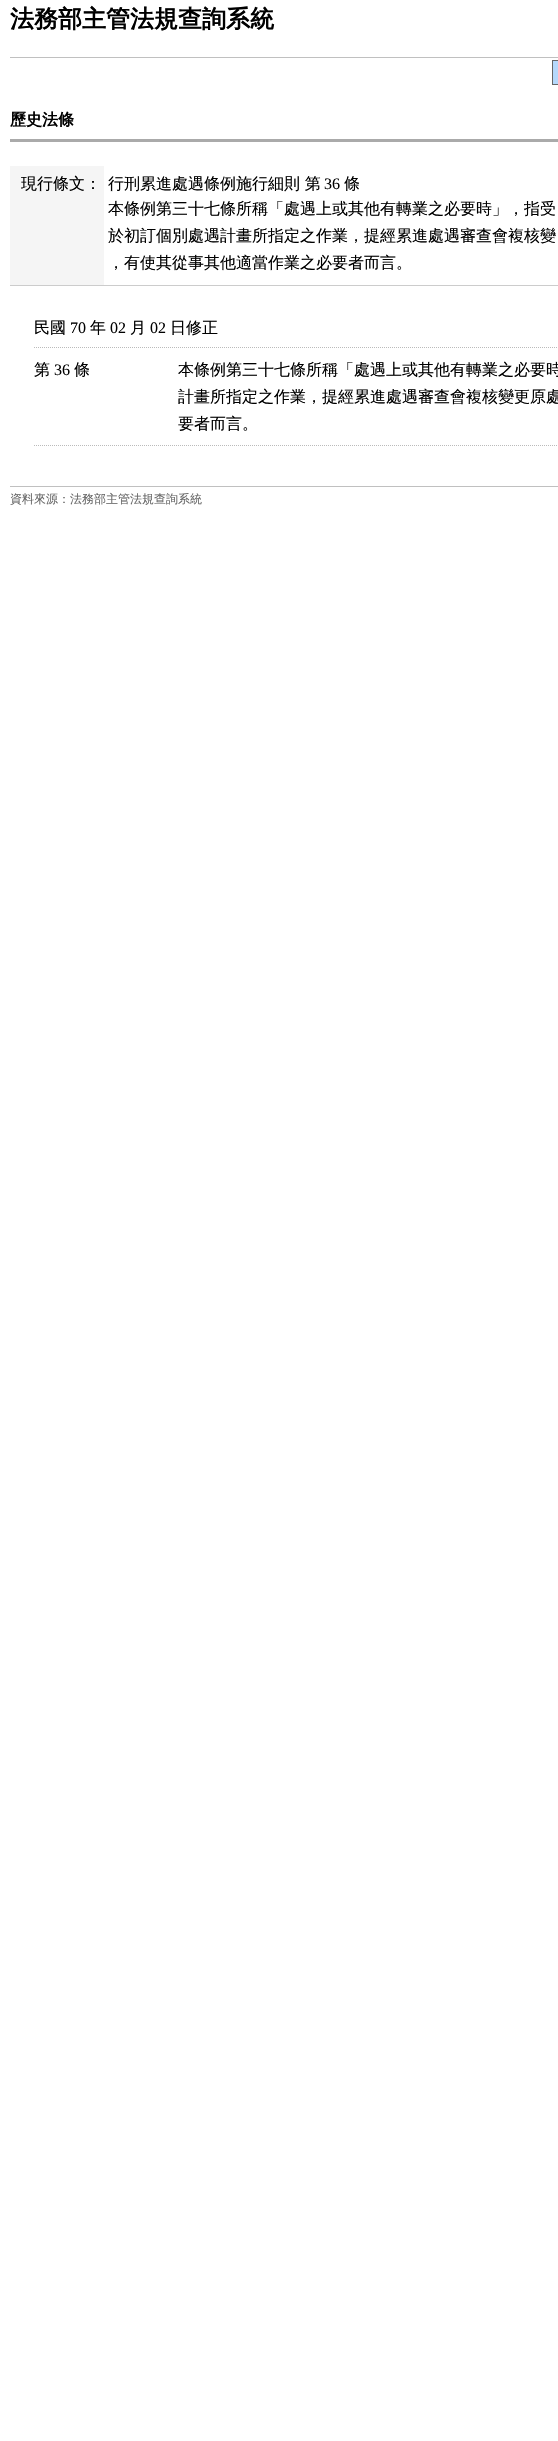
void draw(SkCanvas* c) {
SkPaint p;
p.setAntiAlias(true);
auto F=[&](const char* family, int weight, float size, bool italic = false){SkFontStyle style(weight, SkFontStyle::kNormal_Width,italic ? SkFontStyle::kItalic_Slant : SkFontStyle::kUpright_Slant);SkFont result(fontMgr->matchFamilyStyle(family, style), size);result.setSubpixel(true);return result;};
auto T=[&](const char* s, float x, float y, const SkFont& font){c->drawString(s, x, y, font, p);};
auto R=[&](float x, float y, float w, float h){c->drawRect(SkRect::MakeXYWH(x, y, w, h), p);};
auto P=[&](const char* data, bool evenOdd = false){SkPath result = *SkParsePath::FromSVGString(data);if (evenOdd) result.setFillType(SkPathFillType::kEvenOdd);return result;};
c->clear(0xffffffff);
p.setColor(0xffc0c0c0);
R(10,57,548,1);
auto f1 = F("WenQuanYi Zen Hei",700,24);
p.setColor(0xff000000);
T("法務部主管法規查詢系統",10,27,f1);
p.setColor(0xffb5d8fb);
c->drawRect(SkRect::MakeXYWH(552.5,60.5,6,24),p);
p.setStroke(true);
p.setStrokeWidth(1);
p.setColor(0xff666666);
c->drawRect(SkRect::MakeXYWH(552.5,60.5,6,24),p);
p.setStroke(false);
p.setColor(0xffaaaaaa);
R(10,139,548,3);
auto f2 = F("WenQuanYi Zen Hei",700,16);
p.setColor(0xff000000);
T("歷史法條",10,125,f2);
p.setColor(0xfff5f5f5);
R(10,166,94,119);
auto f3 = F("WenQuanYi Zen Hei",500,16);
p.setColor(0xff000000);
T("現行條文：",21,189,f3);
p.setColor(0xffcccccc);
R(10,285,548,1);
p.setColor(0xff000000);
T("行刑累進處遇條例施行細則 第",108,189,f3);
auto f4 = F("Liberation Serif",400,16);
T("36",324,189,f4);
T("條",344,189,f3);
T("本條例第三十七條所稱「處遇上或其他有轉業之必要時」，指受",108,214,f3);
T("於初訂個別處遇計畫所指定之作業，提經累進處遇審查會複核變",108,241,f3);
T("，有使其從事其他適當作業之必要者而言。",108,268,f3);
p.setStroke(true);
p.setColor(0xffbbbbbb);
p.setPathEffect(SkDashPathEffect::Make({{1,1}}, 0));
c->drawPath(P("M34 347.5h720"),p);
p.setPathEffect(nullptr);
p.setStroke(false);
p.setColor(0xff000000);
T("民國",34,333,f3);
T("70",70,333,f4);
T("年",90,333,f3);
T("02",110,333,f4);
T("月",130,333,f3);
T("02",150,333,f4);
T("日修正",170,333,f3);
p.setStroke(true);
p.setColor(0xffbbbbbb);
p.setPathEffect(SkDashPathEffect::Make({{1,1}}, 0));
c->drawPath(P("M34 445.5h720"),p);
p.setPathEffect(nullptr);
p.setStroke(false);
p.setColor(0xff000000);
T("第",34,375,f3);
T("36",54,375,f4);
T("條",74,375,f3);
T("本條例第三十七條所稱「處遇上或其他有轉業之必要時",178,375,f3);
T("計畫所指定之作業，提經累進處遇審查會複核變更原處",178,402,f3);
T("要者而言。",178,429,f3);
p.setColor(0xffc0c0c0);
R(10,486,548,1);
auto f5 = F("WenQuanYi Zen Hei",500,12);
p.setColor(0xff666666);
T("資料來源：法務部主管法規查詢系統",10,503,f5);
}
